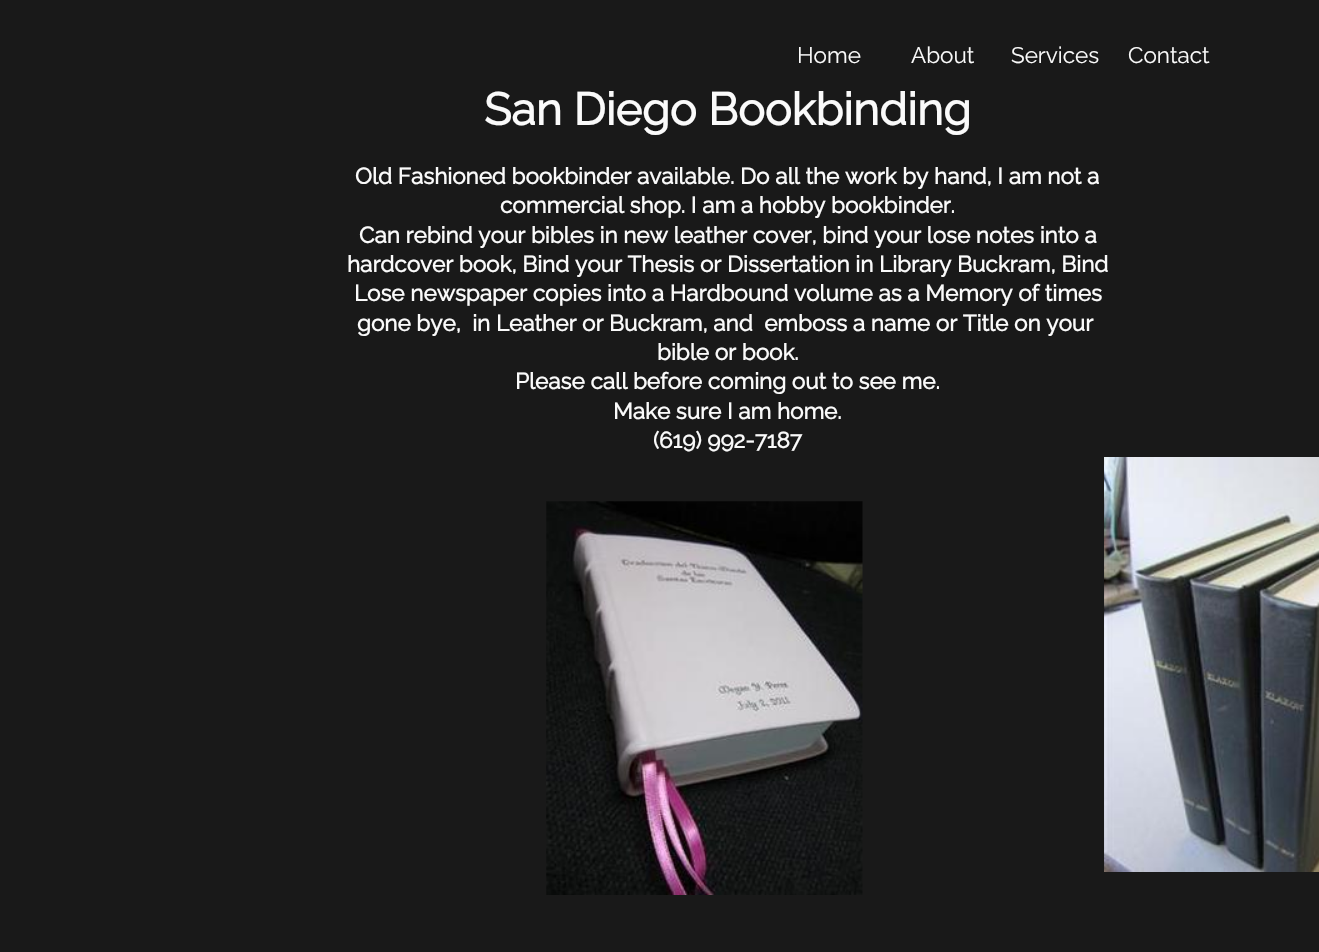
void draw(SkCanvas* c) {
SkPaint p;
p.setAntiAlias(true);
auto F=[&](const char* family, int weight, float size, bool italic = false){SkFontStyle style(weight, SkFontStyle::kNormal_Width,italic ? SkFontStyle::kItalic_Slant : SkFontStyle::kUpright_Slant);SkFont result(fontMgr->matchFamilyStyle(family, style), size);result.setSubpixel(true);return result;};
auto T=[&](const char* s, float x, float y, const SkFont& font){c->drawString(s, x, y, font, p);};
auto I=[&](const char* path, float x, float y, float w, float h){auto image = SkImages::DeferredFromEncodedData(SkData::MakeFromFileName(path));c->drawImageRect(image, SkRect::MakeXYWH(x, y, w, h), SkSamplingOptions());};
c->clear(0xff191919);
auto f1 = F("Raleway",100,22.5);
p.setColor(0xfffafafa);
T("Home",797,63,f1);
T("About",911,63,f1);
T("Services",1011,63,f1);
T("Contact",1128,63,f1);
auto f2 = F("Raleway",700,45);
T("San Diego Bookbinding",484,125,f2);
auto f3 = F("Raleway",700,22.5);
T("Old Fashioned bookbinder available. Do all the work by hand, I am not a",355,184,f3);
T("commercial shop. I am a hobby bookbinder.",500,213,f3);
T("Can rebind your bibles in new leather cover, bind your lose notes into a",359,243,f3);
T("hardcover book, Bind your Thesis or Dissertation in Library Buckram, Bind",347,272,f3);
T("Lose newspaper copies into a Hardbound volume as a Memory of times",354,301,f3);
T("gone bye,  in Leather or Buckram, and  emboss a name or Title on your",357,331,f3);
T("bible or book.",657,360,f3);
T("Please call before coming out to see me.",515,389,f3);
T("Make sure I am home.",613,419,f3);
T("(619) 992-7187",653,448,f3);
I("1.png",546,501,317,394);
I("2.png",1104,457,215,415);
}
